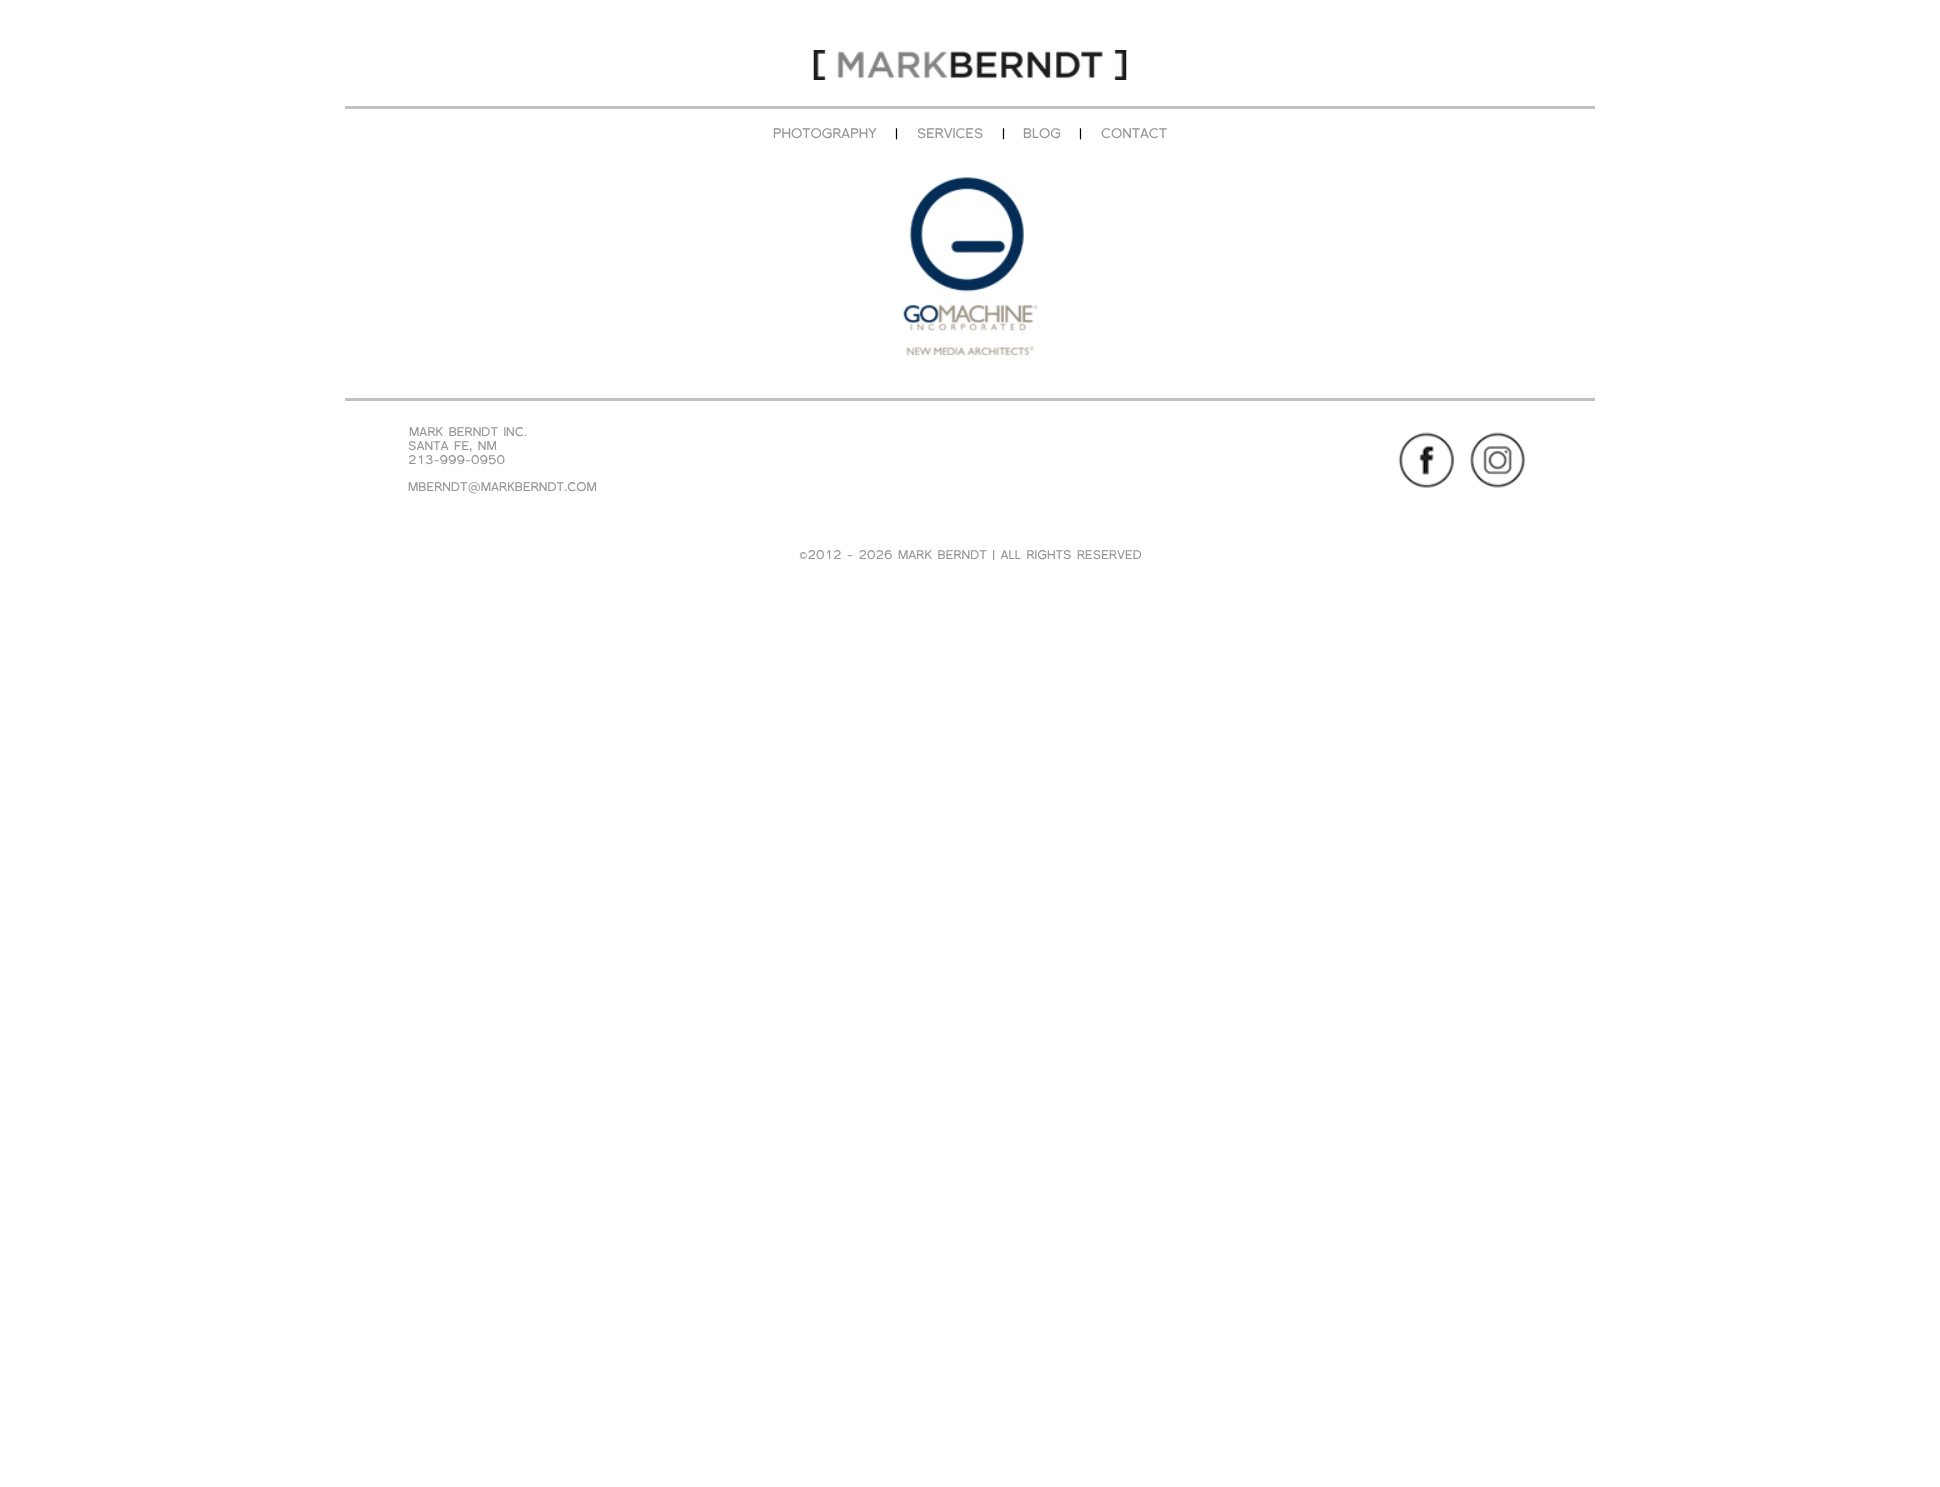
void draw(SkCanvas* c) {
SkPaint p;
p.setAntiAlias(true);
auto F=[&](const char* family, int weight, float size, bool italic = false){SkFontStyle style(weight, SkFontStyle::kNormal_Width,italic ? SkFontStyle::kItalic_Slant : SkFontStyle::kUpright_Slant);SkFont result(fontMgr->matchFamilyStyle(family, style), size);result.setSubpixel(true);return result;};
auto T=[&](const char* s, float x, float y, const SkFont& font){c->drawString(s, x, y, font, p);};
auto R=[&](float x, float y, float w, float h){c->drawRect(SkRect::MakeXYWH(x, y, w, h), p);};
auto I=[&](const char* path, float x, float y, float w, float h){auto image = SkImages::DeferredFromEncodedData(SkData::MakeFromFileName(path));c->drawImageRect(image, SkRect::MakeXYWH(x, y, w, h), SkSamplingOptions());};
c->clear(0xffffffff);
p.setColor(0xffc2c2c2);
R(345,106,1250,3);
I("1.png",813,50,314,30);
auto f1 = F("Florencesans",400,13.75);
p.setColor(0xff959697);
T("PHOTOGRAPHY",773,138,f1);
p.setColor(0xff000000);
T("|",895,138,f1);
p.setColor(0xff959697);
T("SERVICES",917,138,f1);
p.setColor(0xff000000);
T("|",1002,138,f1);
p.setColor(0xff959697);
T("BLOG",1023,138,f1);
p.setColor(0xff000000);
T("|",1079,138,f1);
p.setColor(0xff959697);
T("CONTACT",1101,138,f1);
I("2.png",903,177,135,179);
p.setColor(0xffc2c2c2);
R(345,398,1250,3);
auto f2 = F("Florencesans",400,12.5);
p.setColor(0xff959697);
T("MARK BERNDT INC.",409,436,f2);
T("SANTA FE, NM",408,450,f2);
T("213-999-0950",408,464,f2);
T("MBERNDT@MARKBERNDT.COM",408,491,f2);
I("3.png",1398,432,57,56);
I("4.png",1470,432,56,56);
T("©2012 - 2026 MARK BERNDT | ALL RIGHTS RESERVED",799,559,f2);
}
